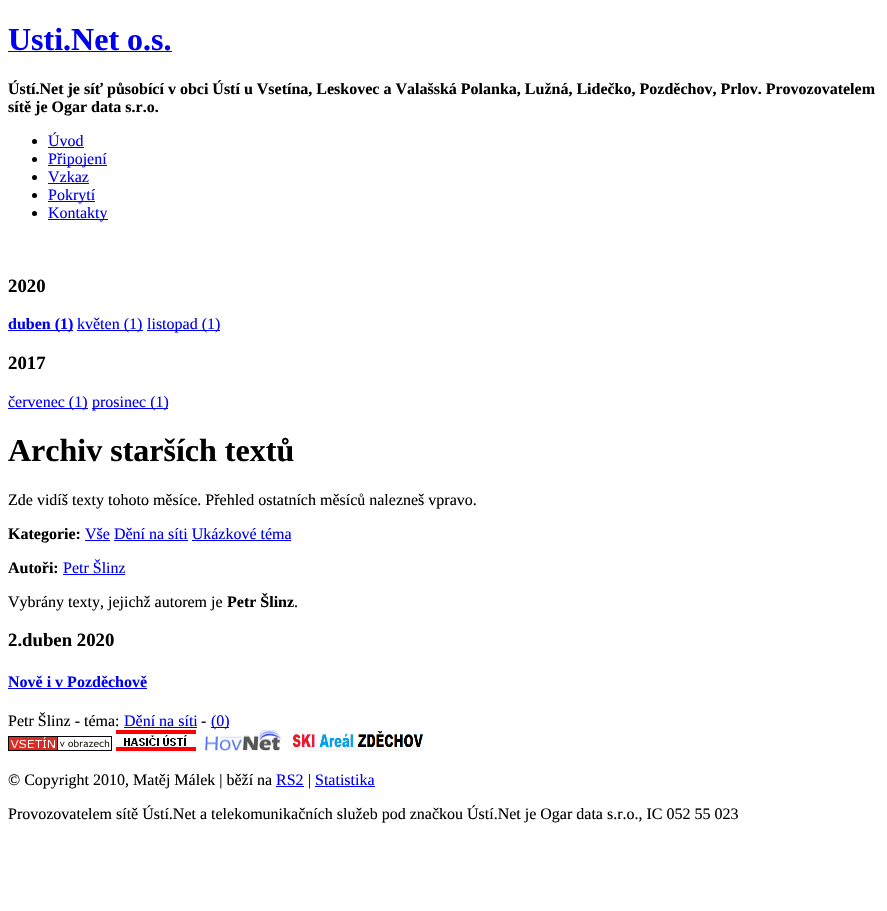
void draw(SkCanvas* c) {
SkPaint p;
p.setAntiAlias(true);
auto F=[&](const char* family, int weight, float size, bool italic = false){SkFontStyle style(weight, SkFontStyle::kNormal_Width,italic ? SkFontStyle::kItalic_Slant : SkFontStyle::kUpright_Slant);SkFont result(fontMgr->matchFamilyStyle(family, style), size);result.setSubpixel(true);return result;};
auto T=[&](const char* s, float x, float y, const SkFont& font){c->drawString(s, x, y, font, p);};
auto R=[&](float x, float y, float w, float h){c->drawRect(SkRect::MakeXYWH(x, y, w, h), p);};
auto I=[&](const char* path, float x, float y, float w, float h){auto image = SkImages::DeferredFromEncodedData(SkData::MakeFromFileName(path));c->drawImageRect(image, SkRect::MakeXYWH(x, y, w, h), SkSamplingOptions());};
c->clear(0xffffffff);
auto f1 = F("Liberation Serif",700,32);
p.setColor(0xff0000ee);
T("Usti.Net o.s.",8,50,f1);
R(8,51,164,1);
auto f2 = F("Liberation Serif",700,16);
p.setColor(0xff000000);
T("Ústí.Net je síť působící v obci Ústí u Vsetína, Leskovec a Valašská Polanka, Lužná, Lidečko, Pozděchov, Prlov. Provozovatelem",8,94,f2);
T("sítě je Ogar data s.r.o.",8,112,f2);
c->drawCircle(34.5,141.5,2.5,p);
auto f3 = F("Liberation Serif",400,16);
p.setColor(0xff0000ee);
T("Úvod",48,146,f3);
R(48,147,36,1);
p.setColor(0xff000000);
c->drawCircle(34.5,159.5,2.5,p);
p.setColor(0xff0000ee);
R(48,165,59,1);
T("Připojení",48,164,f3);
p.setColor(0xff000000);
c->drawCircle(34.5,177.5,2.5,p);
p.setColor(0xff0000ee);
T("Vzkaz",48,182,f3);
R(48,183,41,1);
p.setColor(0xff000000);
c->drawCircle(34.5,195.5,2.5,p);
p.setColor(0xff0000ee);
R(48,201,47,1);
T("Pokrytí",48,200,f3);
p.setColor(0xff000000);
c->drawCircle(34.5,213.5,2.5,p);
p.setColor(0xff0000ee);
R(48,219,60,1);
T("Kontakty",48,218,f3);
auto f4 = F("Liberation Serif",700,18.75);
p.setColor(0xff000000);
T("2020",8,292,f4);
p.setColor(0xff0000ee);
R(8,330,65,1);
T("duben (1)",8,329,f2);
R(77,330,66,1);
T("květen (1)",77,329,f3);
R(147,330,73,1);
T("listopad (1)",147,329,f3);
p.setColor(0xff000000);
T("2017",8,369,f4);
p.setColor(0xff0000ee);
R(8,408,80,1);
T("červenec (1)",8,407,f3);
R(92,408,76,1);
T("prosinec (1)",92,407,f3);
p.setColor(0xff000000);
T("Archiv starších textů",8,461,f1);
T("Zde vidíš texty tohoto měsíce. Přehled ostatních měsíců nalezneš vpravo.",8,505,f3);
T("Kategorie:",8,539,f2);
p.setColor(0xff0000ee);
T("Vše Dění na síti Ukázkové téma",85,539,f3);
R(85,540,25,1);
R(114,540,74,1);
R(192,540,99,1);
p.setColor(0xff000000);
T("Autoři:",8,573,f2);
p.setColor(0xff0000ee);
T("Petr Šlinz",63,573,f3);
R(63,574,62,1);
p.setColor(0xff000000);
T("Vybrány texty, jejichž autorem je",8,607,f3);
T("Petr Šlinz",227,607,f2);
T(".",294,607,f3);
T("2.duben 2020",8,646,f4);
p.setColor(0xff0000ee);
T("Nově i v Pozděchově",8,687,f2);
R(8,688,139,1);
p.setColor(0xff000000);
T("Petr Šlinz - téma:",8,726,f3);
p.setColor(0xff0000ee);
T("Dění na síti",124,726,f3);
R(124,727,73,1);
p.setColor(0xff000000);
T("-",201,726,f3);
p.setColor(0xff0000ee);
R(211,727,18,1);
T("(0)",211,726,f3);
I("1.png",8,736,104,15);
I("2.png",116,730,80,21);
I("3.png",205,730,76,21);
I("4.png",292,731,132,20);
p.setColor(0xff000000);
T("© Copyright 2010, Matěj Málek | běží na",8,785,f3);
p.setColor(0xff0000ee);
T("RS2",276,785,f3);
R(276,786,28,1);
p.setColor(0xff000000);
T("|",308,785,f3);
p.setColor(0xff0000ee);
T("Statistika",315,785,f3);
R(315,786,60,1);
p.setColor(0xff000000);
T("Provozovatelem sítě Ústí.Net a telekomunikačních služeb pod značkou Ústí.Net je Ogar data s.r.o., IC 052 55 023",8,819,f3);
}
